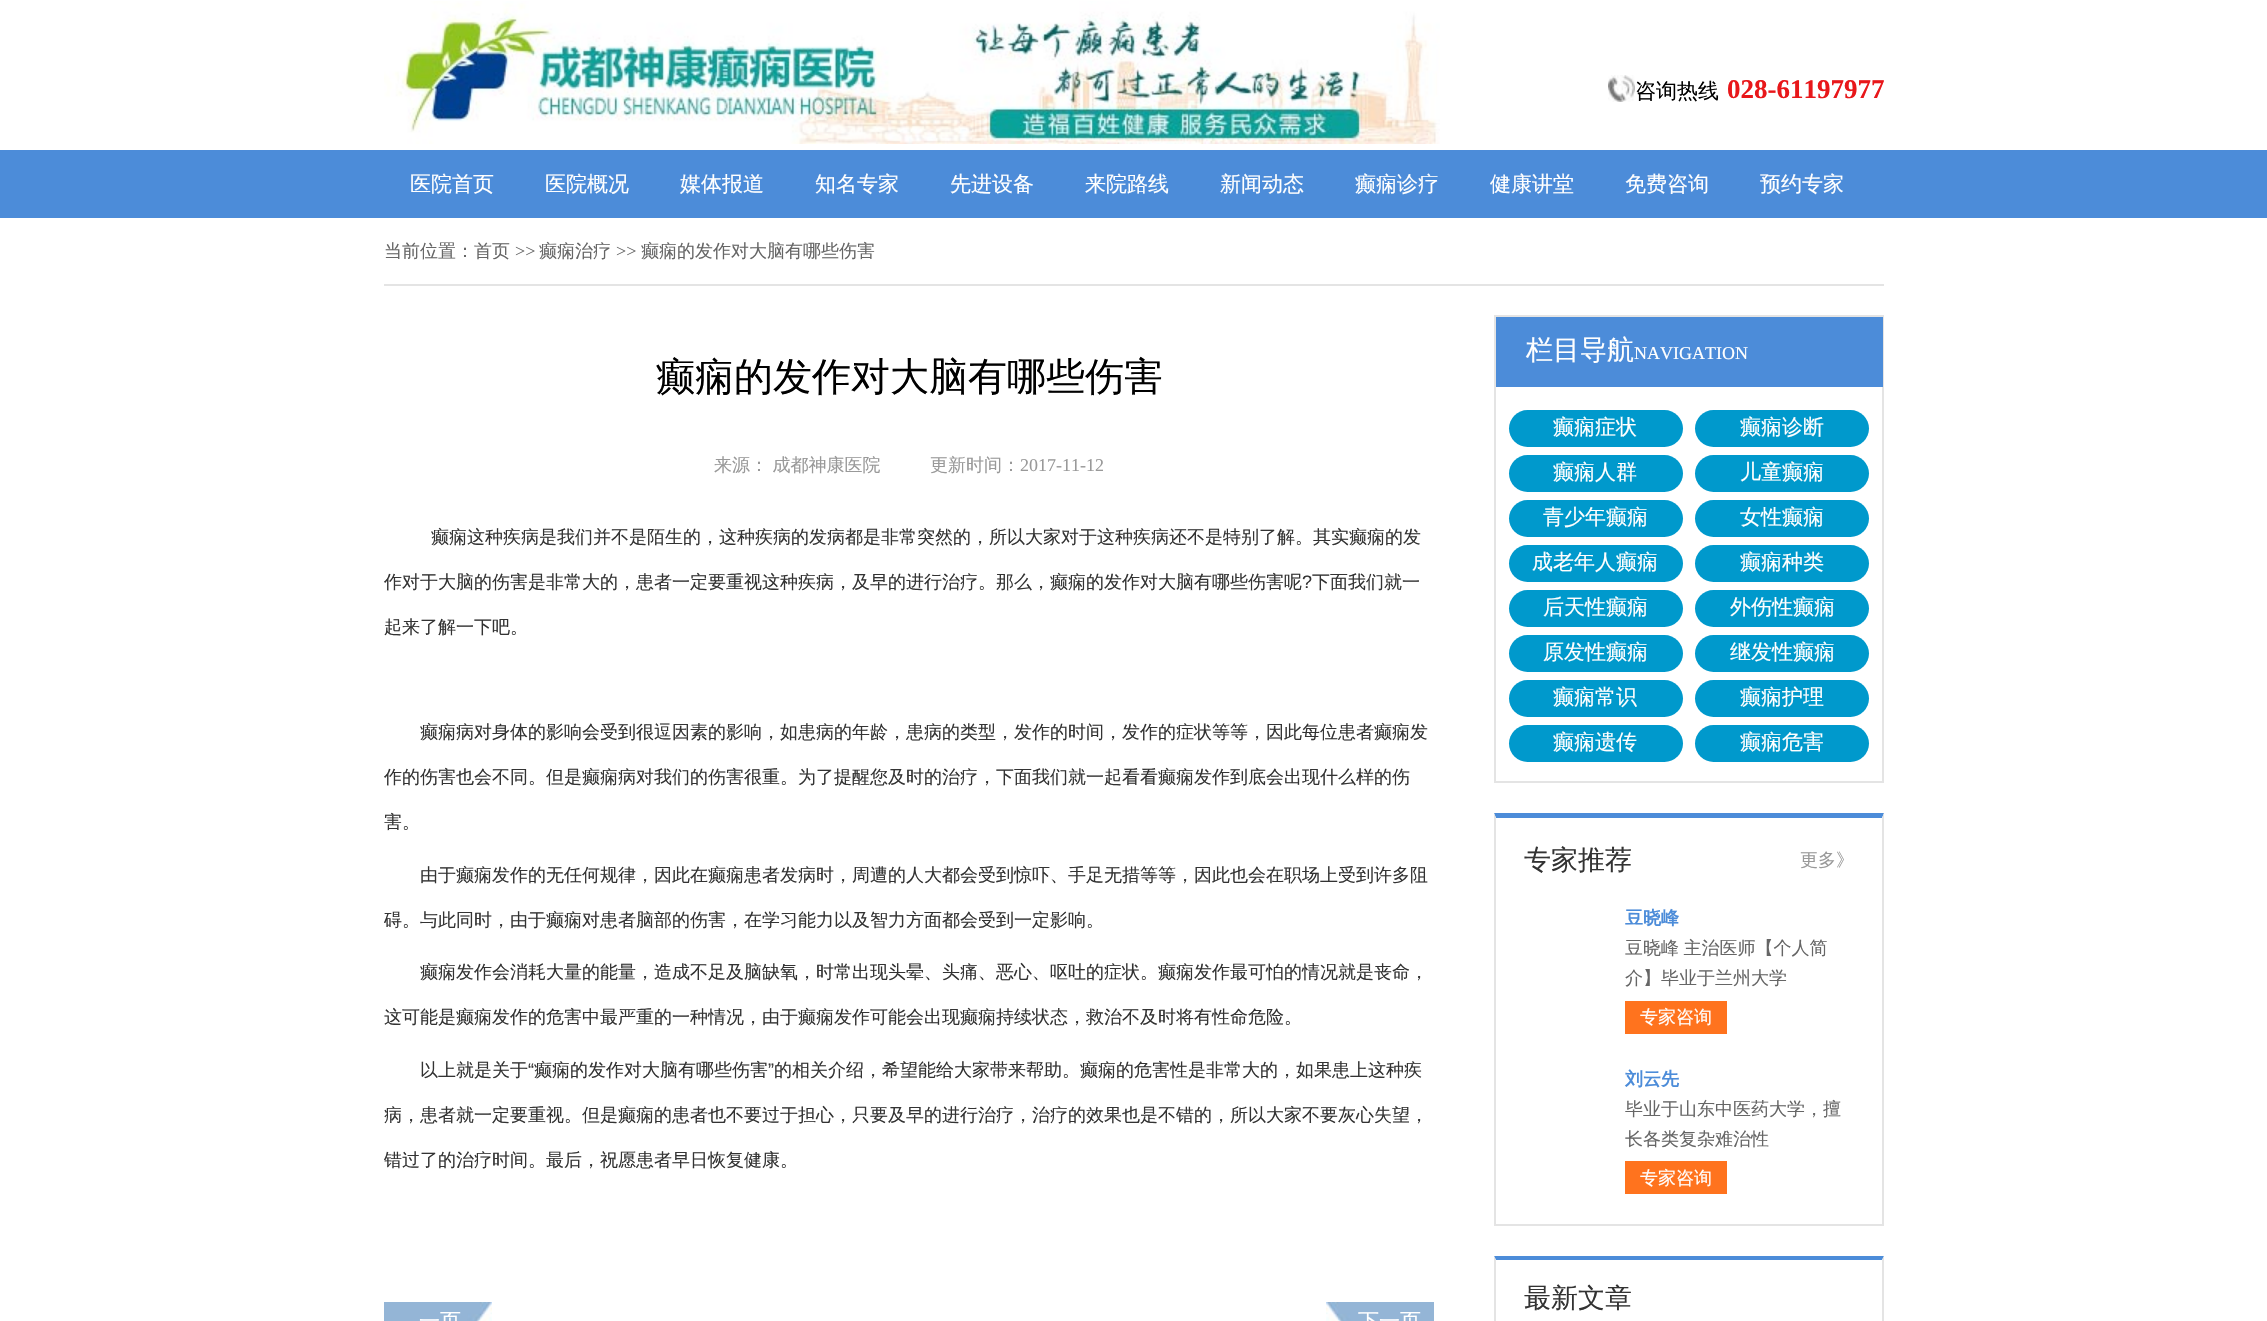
void draw(SkCanvas* c) {
SkPaint p;
p.setAntiAlias(true);
auto F=[&](const char* family, int weight, float size, bool italic = false){SkFontStyle style(weight, SkFontStyle::kNormal_Width,italic ? SkFontStyle::kItalic_Slant : SkFontStyle::kUpright_Slant);SkFont result(fontMgr->matchFamilyStyle(family, style), size);result.setSubpixel(true);return result;};
auto T=[&](const char* s, float x, float y, const SkFont& font){c->drawString(s, x, y, font, p);};
auto L=[&](const char* s, float x, float y, const SkFont& font, const SkPaint& ink, float letter, float word){std::vector<SkGlyphID> glyphs(font.countText(s, strlen(s), SkTextEncoding::kUTF8));std::vector<float> xs(glyphs.size());font.textToGlyphs(s, strlen(s), SkTextEncoding::kUTF8, glyphs);font.getXPos(glyphs, xs, x);float extra = 0;for (size_t i = 0; i < glyphs.size(); i++) {xs[i] += extra;extra += letter + word * (glyphs[i] == font.unicharToGlyph(' '));}c->drawTextBlob(SkTextBlob::MakeFromPosHGlyphs(glyphs, xs, y, font), 0, 0, ink);};
auto R=[&](float x, float y, float w, float h){c->drawRect(SkRect::MakeXYWH(x, y, w, h), p);};
auto Q=[&](float x, float y, float w, float h, float radius){c->drawRoundRect(SkRect::MakeXYWH(x, y, w, h), radius, radius, p);};
auto I=[&](const char* path, float x, float y, float w, float h){auto image = SkImages::DeferredFromEncodedData(SkData::MakeFromFileName(path));c->drawImageRect(image, SkRect::MakeXYWH(x, y, w, h), SkSamplingOptions());};
auto P=[&](const char* data, bool evenOdd = false){SkPath result = *SkParsePath::FromSVGString(data);if (evenOdd) result.setFillType(SkPathFillType::kEvenOdd);return result;};
c->clear(0xffffffff);
I("1.png",384,1,1056,143);
I("2.png",1608,75,27,27);
auto f1 = F("WenQuanYi Zen Hei",500,21);
p.setColor(0xff000000);
T("咨询热线",1635,98,f1);
auto f2 = F("Liberation Serif",700,27);
p.setColor(0xffe8171a);
T("028-61197977",1727,98,f2);
p.setColor(0xff4c8cd9);
R(0,150,2267,68);
p.setColor(0xffffffff);
T("医院首页",410,191,f1);
T("医院概况",545,191,f1);
T("媒体报道",680,191,f1);
T("知名专家",815,191,f1);
T("先进设备",950,191,f1);
T("来院路线",1085,191,f1);
T("新闻动态",1220,191,f1);
T("癫痫诊疗",1355,191,f1);
T("健康讲堂",1490,191,f1);
T("免费咨询",1625,191,f1);
T("预约专家",1760,191,f1);
p.setColor(0xffe4e4e4);
R(384,284,1500,2);
auto f3 = F("WenQuanYi Zen Hei",500,18);
p.setColor(0xff666666);
T("当前位置：首页",384,257,f3);
auto f4 = F("Liberation Serif",400,18);
T(">>",515,257,f4);
T("癫痫治疗",539,257,f3);
T(">>",616,257,f4);
T("癫痫的发作对大脑有哪些伤害",641,257,f3);
auto f5 = F("WenQuanYi Zen Hei",500,39);
p.setColor(0xff000000);
T("癫痫的发作对大脑有哪些伤害",656,390,f5);
p.setColor(0xff999999);
L("来源： 成都神康医院",714,471,f3,p,0,-1);
T("更新时间：",930,471,f3);
T("2017-11-12",1020,471,f4);
p.setColor(0xff333333);
T("癫痫这种疾病是我们并不是陌生的，这种疾病的发病都是非常突然的，所以大家对于这种疾病还不是特别了解。其实癫痫的发",431,543,f3);
T("作对于大脑的伤害是非常大的，患者一定要重视这种疾病，及早的进行治疗。那么，癫痫的发作对大脑有哪些伤害呢",384,588,f3);
auto f6 = F("Liberation Sans",400,18);
T("?",1302,588,f6);
T("下面我们就一",1312,588,f3);
T("起来了解一下吧。",384,633,f3);
T("癫痫病对身体的影响会受到很逗因素的影响，如患病的年龄，患病的类型，发作的时间，发作的症状等等，因此每位患者癫痫发",420,738,f3);
T("作的伤害也会不同。但是癫痫病对我们的伤害很重。为了提醒您及时的治疗，下面我们就一起看看癫痫发作到底会出现什么样的伤",384,783,f3);
T("害。",384,828,f3);
T("由于癫痫发作的无任何规律，因此在癫痫患者发病时，周遭的人大都会受到惊吓、手足无措等等，因此也会在职场上受到许多阻",420,881,f3);
T("碍。与此同时，由于癫痫对患者脑部的伤害，在学习能力以及智力方面都会受到一定影响。",384,926,f3);
T("癫痫发作会消耗大量的能量，造成不足及脑缺氧，时常出现头晕、头痛、恶心、呕吐的症状。癫痫发作最可怕的情况就是丧命，",420,978,f3);
T("这可能是癫痫发作的危害中最严重的一种情况，由于癫痫发作可能会出现癫痫持续状态，救治不及时将有性命危险。",384,1023,f3);
T("以上就是关于",420,1076,f3);
T("“",528,1076,f6);
T("癫痫的发作对大脑有哪些伤害",534,1076,f3);
T("”",768,1076,f6);
T("的相关介绍，希望能给大家带来帮助。癫痫的危害性是非常大的，如果患上这种疾",774,1076,f3);
T("病，患者就一定要重视。但是癫痫的患者也不要过于担心，只要及早的进行治疗，治疗的效果也是不错的，所以大家不要灰心失望，",384,1121,f3);
T("错过了的治疗时间。最后，祝愿患者早日恢复健康。",384,1166,f3);
I("3.png",384,1302,108,19);
p.setColor(0xffffffff);
T("一页",419,1328,f1);
I("4.png",1326,1302,108,19);
T("下一页",1358,1328,f1);
p.setStroke(true);
p.setStrokeWidth(2);
p.setColor(0xffe4e4e4);
c->drawRect(SkRect::MakeXYWH(1495,316,388,466),p);
p.setStroke(false);
p.setColor(0xff4c8cd9);
R(1496,317,387,70);
auto f7 = F("WenQuanYi Zen Hei",500,27);
p.setColor(0xffffffff);
T("栏目导航",1526,359,f7);
T("NAVIGATION",1634,359,f4);
p.setColor(0xff0099cc);
Q(1509,410,174,37,18.5);
p.setColor(0xffffffff);
T("癫痫症状",1553,434,f1);
p.setColor(0xff0099cc);
Q(1695,410,174,37,18.5);
p.setColor(0xffffffff);
T("癫痫诊断",1740,434,f1);
p.setColor(0xff0099cc);
Q(1509,455,174,37,18.5);
p.setColor(0xffffffff);
T("癫痫人群",1553,479,f1);
p.setColor(0xff0099cc);
Q(1695,455,174,37,18.5);
p.setColor(0xffffffff);
T("儿童癫痫",1740,479,f1);
p.setColor(0xff0099cc);
Q(1509,500,174,37,18.5);
p.setColor(0xffffffff);
T("青少年癫痫",1543,524,f1);
p.setColor(0xff0099cc);
Q(1695,500,174,37,18.5);
p.setColor(0xffffffff);
T("女性癫痫",1740,524,f1);
p.setColor(0xff0099cc);
Q(1509,545,174,37,18.5);
p.setColor(0xffffffff);
T("成老年人癫痫",1532,569,f1);
p.setColor(0xff0099cc);
Q(1695,545,174,37,18.5);
p.setColor(0xffffffff);
T("癫痫种类",1740,569,f1);
p.setColor(0xff0099cc);
Q(1509,590,174,37,18.5);
p.setColor(0xffffffff);
T("后天性癫痫",1543,614,f1);
p.setColor(0xff0099cc);
Q(1695,590,174,37,18.5);
p.setColor(0xffffffff);
T("外伤性癫痫",1730,614,f1);
p.setColor(0xff0099cc);
Q(1509,635,174,37,18.5);
p.setColor(0xffffffff);
T("原发性癫痫",1543,659,f1);
p.setColor(0xff0099cc);
Q(1695,635,174,37,18.5);
p.setColor(0xffffffff);
T("继发性癫痫",1730,659,f1);
p.setColor(0xff0099cc);
Q(1509,680,174,37,18.5);
p.setColor(0xffffffff);
T("癫痫常识",1553,704,f1);
p.setColor(0xff0099cc);
Q(1695,680,174,37,18.5);
p.setColor(0xffffffff);
T("癫痫护理",1740,704,f1);
p.setColor(0xff0099cc);
Q(1509,725,174,37,18.5);
p.setColor(0xffffffff);
T("癫痫遗传",1553,749,f1);
p.setColor(0xff0099cc);
Q(1695,725,174,37,18.5);
p.setColor(0xffffffff);
T("癫痫危害",1740,749,f1);
p.setColor(0xff4c8cd9);
c->drawPath(P("M1494 813h390l-2 5h-386z"),p);
p.setColor(0xffe4e4e4);
c->drawPath(P("M1884 813v413l-2-2v-406z"),p);
R(1494,1224,390,2);
c->drawPath(P("M1494 1226v-413l2 5v406z"),p);
p.setColor(0xff333333);
T("专家推荐",1524,869,f7);
p.setColor(0xff999999);
T("更多》",1800,866,f3);
auto f8 = F("WenQuanYi Zen Hei",700,18);
p.setColor(0xff4c8cd9);
T("豆晓峰",1625,924,f8);
p.setColor(0xff666666);
L("豆晓峰 主治医师【个人简",1625,954,f3,p,0,-1);
T("介】毕业于兰州大学",1625,984,f3);
p.setColor(0xffff731e);
R(1625,1001,102,33);
p.setColor(0xffffffff);
T("专家咨询",1640,1023,f3);
p.setColor(0xff4c8cd9);
T("刘云先",1625,1085,f8);
p.setColor(0xff666666);
T("毕业于山东中医药大学，擅",1625,1115,f3);
T("长各类复杂难治性",1625,1145,f3);
p.setColor(0xffff731e);
R(1625,1161,102,33);
p.setColor(0xffffffff);
T("专家咨询",1640,1184,f3);
p.setColor(0xff4c8cd9);
c->drawPath(P("M1494 1256h390l-2 4h-386z"),p);
p.setColor(0xffe4e4e4);
c->drawPath(P("M1884 1256v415l-2-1v-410z"),p);
c->drawPath(P("M1494 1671v-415l2 4v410z"),p);
p.setColor(0xff333333);
T("最新文章",1524,1307,f7);
}
